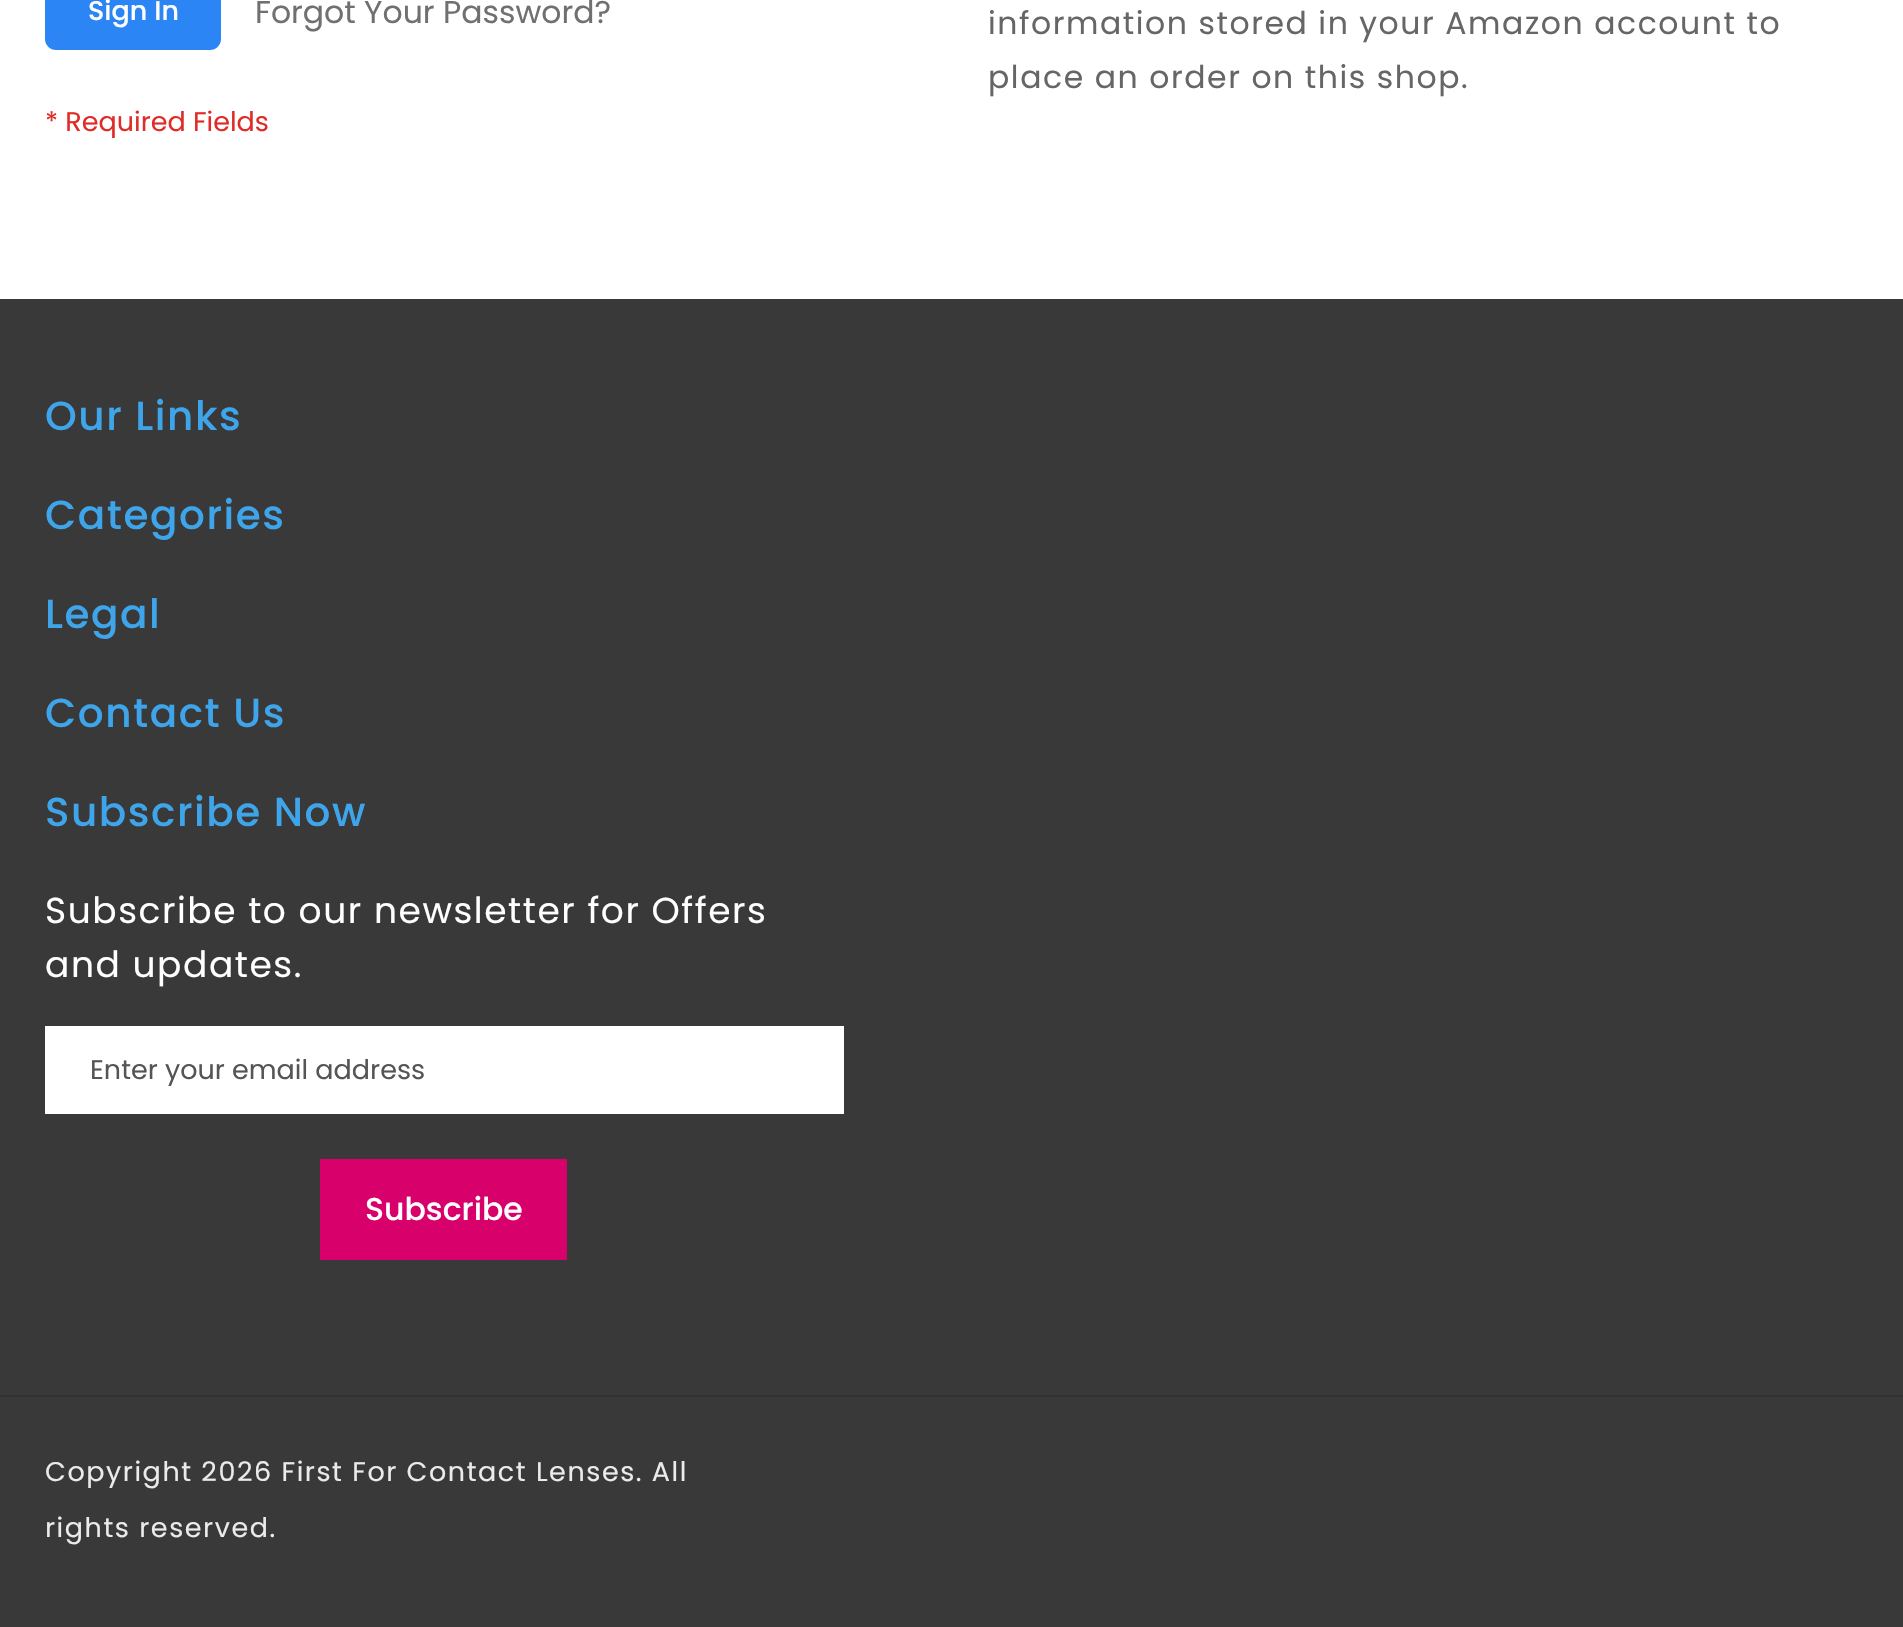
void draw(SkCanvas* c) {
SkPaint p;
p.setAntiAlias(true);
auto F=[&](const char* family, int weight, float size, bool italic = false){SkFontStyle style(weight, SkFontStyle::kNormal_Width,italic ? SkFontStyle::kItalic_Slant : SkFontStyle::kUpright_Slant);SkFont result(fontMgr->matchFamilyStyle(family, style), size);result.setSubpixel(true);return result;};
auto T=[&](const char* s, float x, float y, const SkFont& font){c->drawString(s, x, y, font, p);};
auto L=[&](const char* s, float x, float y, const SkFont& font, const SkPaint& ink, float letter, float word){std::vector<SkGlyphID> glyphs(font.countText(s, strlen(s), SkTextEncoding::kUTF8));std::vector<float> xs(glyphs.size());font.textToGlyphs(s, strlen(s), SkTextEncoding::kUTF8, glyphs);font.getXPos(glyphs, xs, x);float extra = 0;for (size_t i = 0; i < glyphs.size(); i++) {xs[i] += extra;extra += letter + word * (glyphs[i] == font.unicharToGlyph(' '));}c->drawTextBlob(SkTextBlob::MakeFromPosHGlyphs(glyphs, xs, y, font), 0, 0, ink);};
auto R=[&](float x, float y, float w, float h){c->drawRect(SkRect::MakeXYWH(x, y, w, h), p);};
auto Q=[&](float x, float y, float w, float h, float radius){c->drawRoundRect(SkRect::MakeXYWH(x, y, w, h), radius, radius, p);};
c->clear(0xffffffff);
p.setColor(0xff2b85f4);
Q(45,-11,176,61,11);
auto f1 = F("Poppins",500,27);
p.setColor(0xffffffff);
T("Sign In",88,20,f1);
auto f2 = F("Poppins",400,31.5);
p.setColor(0xff707070);
T("Forgot Your Password?",255,23,f2);
auto f3 = F("Poppins",400,27);
p.setColor(0xffe02b27);
T("* Required Fields",45,131,f3);
p.setColor(0xff666666);
L("information stored in your Amazon account to",988,34,f2,p,1.55,0);
L("place an order on this shop.",988,88,f2,p,1.55,0);
p.setColor(0xff393939);
R(0,299,1903,1328);
auto f4 = F("Poppins",500,40.5);
p.setColor(0xff3fa5eb);
L("Our Links",45,430,f4,p,1.55,0);
L("Categories",45,529,f4,p,1.55,0);
L("Legal",45,628,f4,p,1.55,0);
L("Contact Us",45,727,f4,p,1.55,0);
L("Subscribe Now",45,826,f4,p,1.55,0);
auto f5 = F("Poppins",400,36);
p.setColor(0xffffffff);
L("Subscribe to our newsletter for Offers",45,923,f5,p,1.55,0);
L("and updates.",45,977,f5,p,1.55,0);
R(45,1026,799,88);
p.setColor(0xff555555);
T("Enter your email address",90,1079,f3);
p.setColor(0xffd8006b);
R(320,1159,247,101);
auto f6 = F("Poppins",500,31.5);
p.setColor(0xffffffff);
T("Subscribe",365,1220,f6);
p.setColor(0xff333333);
R(0,1395,1903,2);
p.setColor(0xffebebeb);
L("Copyright 2026 First For Contact Lenses. All",45,1481,f3,p,1.55,0);
L("rights reserved.",45,1537,f3,p,1.55,0);
}
